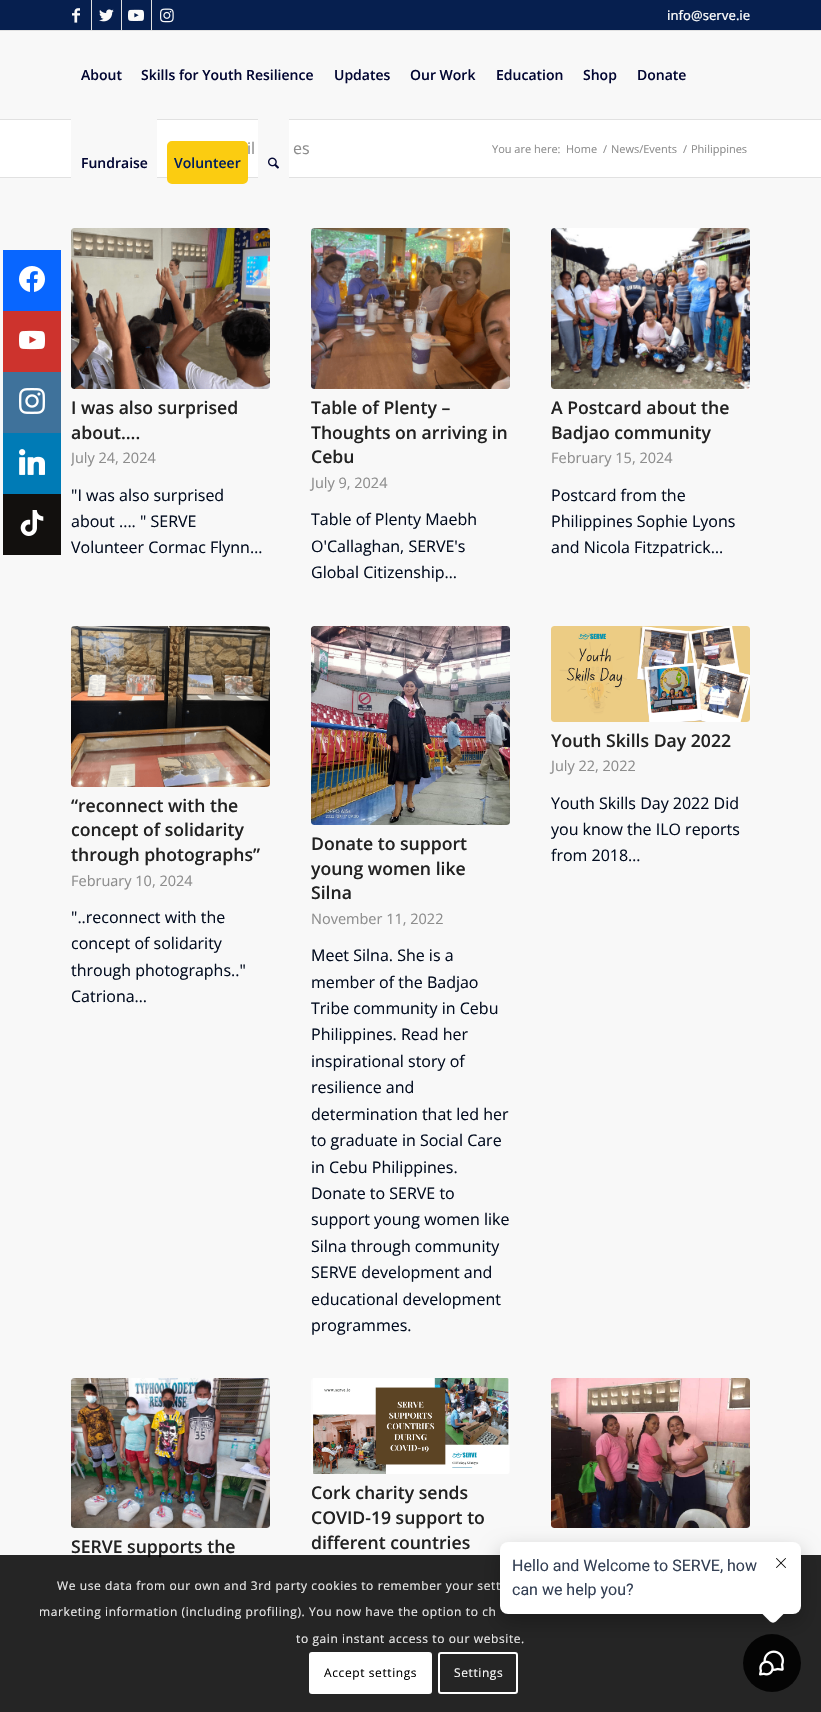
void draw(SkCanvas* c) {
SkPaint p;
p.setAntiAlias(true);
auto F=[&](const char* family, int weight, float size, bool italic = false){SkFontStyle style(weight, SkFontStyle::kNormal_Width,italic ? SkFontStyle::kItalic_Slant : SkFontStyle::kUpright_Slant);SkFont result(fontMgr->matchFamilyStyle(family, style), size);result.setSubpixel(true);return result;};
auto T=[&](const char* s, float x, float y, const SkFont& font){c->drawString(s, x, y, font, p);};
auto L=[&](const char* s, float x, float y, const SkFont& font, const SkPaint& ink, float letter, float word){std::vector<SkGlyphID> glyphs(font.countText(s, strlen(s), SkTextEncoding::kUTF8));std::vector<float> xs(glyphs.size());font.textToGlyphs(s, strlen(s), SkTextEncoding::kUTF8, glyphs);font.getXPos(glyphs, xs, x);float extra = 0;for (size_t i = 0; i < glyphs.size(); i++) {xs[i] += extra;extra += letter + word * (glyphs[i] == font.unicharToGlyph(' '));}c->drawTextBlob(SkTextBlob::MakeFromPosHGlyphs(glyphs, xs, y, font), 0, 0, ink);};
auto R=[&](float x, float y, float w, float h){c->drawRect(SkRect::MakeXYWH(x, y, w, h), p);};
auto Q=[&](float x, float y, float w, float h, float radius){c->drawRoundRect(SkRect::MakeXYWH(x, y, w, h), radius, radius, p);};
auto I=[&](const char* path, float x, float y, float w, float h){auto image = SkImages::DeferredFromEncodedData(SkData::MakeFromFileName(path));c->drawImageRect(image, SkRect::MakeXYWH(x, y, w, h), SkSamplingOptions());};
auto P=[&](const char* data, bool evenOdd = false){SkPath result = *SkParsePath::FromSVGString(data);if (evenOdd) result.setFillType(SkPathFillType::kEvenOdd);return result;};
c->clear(0xfff8f8f8);
p.setColor(0xff0866ff);
R(3,250,58,61);
I("1.png",19,266,26,26);
p.setColor(0xffcd332d);
R(3,311,58,61);
I("2.png",19,330,26,20);
p.setColor(0xff3f729b);
R(3,372,58,61);
I("3.png",19,388,26,26);
p.setColor(0xff007bb6);
R(3,433,58,61);
I("4.png",19,449,26,26);
p.setColor(0xff12100e);
R(3,494,58,61);
I("5.png",20,510,24,26);
p.setColor(0xff061f4f);
R(0,0,821,30);
p.setColor(0xffe1e1e1);
R(0,30,821,1);
R(91,0,1,30);
I("6.png",72,8,8,15);
R(121,0,1,30);
I("7.png",99,9,15,13);
R(151,0,1,30);
I("8.png",128,9,16,12);
I("9.png",160,8,14,15);
auto f1 = F("Open Sans",500,13);
p.setColor(0xfffafafa);
T("info@serve.ie",667,20,f1);
p.setColor(0xffe1e1e1);
R(0,119,821,1);
auto f2 = F("Open Sans",600,14);
p.setColor(0xff030733);
T("About",81,80,f2);
T("Skills for Youth Resilience",141,80,f2);
T("Updates",334,80,f2);
T("Our Work",410,80,f2);
T("Education",496,80,f2);
T("Shop",583,80,f2);
T("Donate",637,80,f2);
p.setColor(0xffffffff);
R(0,120,821,57);
p.setColor(0xffe1e1e1);
R(0,177,821,1);
p.setColor(0xfff8f8f8);
R(71,119,86,59);
p.setColor(0xff030733);
T("Fundraise",81,168,f2);
p.setColor(0xfffbcc11);
c->drawRoundRect(SkRect::MakeXYWH(168,142,79,41),4,4,p);
p.setStroke(true);
p.setStrokeWidth(2);
c->drawRoundRect(SkRect::MakeXYWH(168,142,79,41),4,4,p);
p.setStroke(false);
p.setColor(0xff011f5f);
T("Volunteer",174,168,f2);
p.setColor(0xfff8f8f8);
R(258,119,31,59);
I("10.png",268,157,11,12);
auto f3 = F("Open Sans",400,16);
p.setColor(0xff8d8d8d);
T("il",247,154,f3);
T("es",293,154,f3);
auto f4 = F("Open Sans",400,11);
T("You are here:",492,153,f4);
T("Home",566,153,f4);
T("/",603,153,f4);
T("News/Events",611,153,f4);
T("/",683,153,f4);
T("Philippines",691,153,f4);
p.setColor(0xfffcfcfc);
Q(71,228,199,161,3);
I("11.png",71,228,199,161);
auto f5 = F("Open Sans",600,17.6);
p.setColor(0xff222222);
T("I was also surprised",71,414,f5);
T("about….",71,439,f5);
c->save();
c->clipRect(SkRect::MakeXYWH(71,228,679,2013));
auto f6 = F("Open Sans",400,14.5);
p.setColor(0xff8d8d8d);
T("July 24, 2024",71,463,f6);
c->restore();
p.setColor(0xff030d20);
T("\"I was also surprised",71,501,f3);
T("about .... \" SERVE",71,527,f3);
T("Volunteer Cormac Flynn…",71,553,f3);
p.setColor(0xfffcfcfc);
Q(311,228,199,161,3);
I("12.png",311,228,199,161);
p.setColor(0xff222222);
T("Table of Plenty –",311,414,f5);
T("Thoughts on arriving in",311,439,f5);
T("Cebu",311,463,f5);
p.setColor(0xff8d8d8d);
T("July 9, 2024",311,488,f6);
p.setColor(0xff030d20);
T("Table of Plenty Maebh",311,525,f3);
T("O'Callaghan, SERVE's",311,552,f3);
T("Global Citizenship…",311,578,f3);
p.setColor(0xfffcfcfc);
Q(551,228,199,161,3);
I("13.png",551,228,199,161);
p.setColor(0xff222222);
T("A Postcard about the",551,414,f5);
T("Badjao community",551,439,f5);
p.setColor(0xff8d8d8d);
T("February 15, 2024",551,463,f6);
p.setColor(0xff030d20);
T("Postcard from the",551,501,f3);
T("Philippines Sophie Lyons",551,527,f3);
T("and Nicola Fitzpatrick…",551,553,f3);
p.setColor(0xfffcfcfc);
Q(71,626,199,161,3);
I("14.png",71,626,199,161);
p.setColor(0xff222222);
T("“reconnect with the",71,812,f5);
T("concept of solidarity",71,836,f5);
T("through photographs”",71,861,f5);
p.setColor(0xff8d8d8d);
T("February 10, 2024",71,886,f6);
p.setColor(0xff030d20);
T("\"..reconnect with the",71,923,f3);
T("concept of solidarity",71,949,f3);
T("through photographs..\"",71,976,f3);
T("Catriona…",71,1002,f3);
p.setColor(0xfffcfcfc);
Q(311,626,199,199,3);
I("15.png",311,626,199,199);
p.setColor(0xff222222);
T("Donate to support",311,850,f5);
T("young women like",311,875,f5);
T("Silna",311,899,f5);
p.setColor(0xff8d8d8d);
T("November 11, 2022",311,924,f6);
p.setColor(0xff030d20);
T("Meet Silna. She is a",311,961,f3);
T("member of the Badjao",311,988,f3);
T("Tribe community in Cebu",311,1014,f3);
T("Philippines. Read her",311,1040,f3);
T("inspirational story of",311,1067,f3);
T("resilience and",311,1093,f3);
T("determination that led her",311,1120,f3);
T("to graduate in Social Care",311,1146,f3);
T("in Cebu Philippines.",311,1173,f3);
T("Donate to SERVE to",311,1199,f3);
T("support young women like",311,1225,f3);
T("Silna through community",311,1252,f3);
T("SERVE development and",311,1278,f3);
T("educational development",311,1305,f3);
T("programmes.",311,1331,f3);
p.setColor(0xfffcfcfc);
Q(551,626,199,96,3);
I("16.png",551,626,199,96);
p.setColor(0xff222222);
T("Youth Skills Day 2022",551,747,f5);
p.setColor(0xff8d8d8d);
T("July 22, 2022",551,771,f6);
p.setColor(0xff030d20);
T("Youth Skills Day 2022 Did",551,809,f3);
T("you know the ILO reports",551,835,f3);
T("from 2018…",551,861,f3);
p.setColor(0xfffcfcfc);
Q(71,1378,199,150,3);
I("17.png",71,1378,199,150);
p.setColor(0xff222222);
T("SERVE supports the",71,1553,f5);
p.setColor(0xfffcfcfc);
Q(311,1378,199,96,3);
I("18.png",313,1378,196,96);
p.setColor(0xff222222);
T("Cork charity sends",311,1499,f5);
T("COVID-19 support to",311,1524,f5);
T("different countries",311,1549,f5);
p.setColor(0xfffcfcfc);
Q(551,1378,199,150,3);
I("19.png",551,1378,199,150);
p.setColor(0xd9000000);
R(0,1555,821,157);
auto f7 = F("Open Sans",400,12);
p.setColor(0xffe9e9e9);
L("We use data from our own and 3rd party cookies to remember your sett",57,1590,f7,p,.6,0);
L("marketing information (including profiling). You now have the option to ch",39,1616,f7,p,.6,0);
L("to gain instant access to our website.",296,1643,f7,p,.6,0);
p.setColor(0xffffffff);
Q(309,1652,123,42,3);
p.setColor(0xff000000);
L("Accept settings",324,1677,f7,p,.6,0);
p.setStroke(true);
p.setColor(0xffffffff);
c->drawRoundRect(SkRect::MakeXYWH(439,1653,78,40),2,2,p);
p.setStroke(false);
p.setColor(0xfffafafa);
L("Settings",454,1677,f7,p,.6,0);
p.setColor(0xff040404);
c->drawCircle(772,1663,29,p);
I("21.png",759,1650,25,26);
p.setColor(0x3d000000);
p.setMaskFilter(SkMaskFilter::MakeBlur(kNormal_SkBlurStyle, 10));
c->drawRoundRect(SkRect::MakeXYWH(500,1550,301,72),8,8,p);
p.setMaskFilter(nullptr);
p.setColor(0xffffffff);
Q(500,1542,301,72,8);
auto f8 = F("Roboto",400,16);
p.setColor(0xff344054);
T("Hello and Welcome to SERVE, how",512,1571,f8);
T("can we help you?",512,1595,f8);
p.setColor(0xffffffff);
c->drawPath(P("M776 1598.5l8.5 8.5c1.5 1.5 1.5 4.5 0 6l-8.5 8.5c-1.5 1.5-4.5 1.5-6 0l-8.5-8.5c-1.5-1.5-1.5-4.5 0-6l8.5-8.5c1.5-1.5 4.5-1.5 6 0z"),p);
I("20.png",776,1558,10,10);
}
